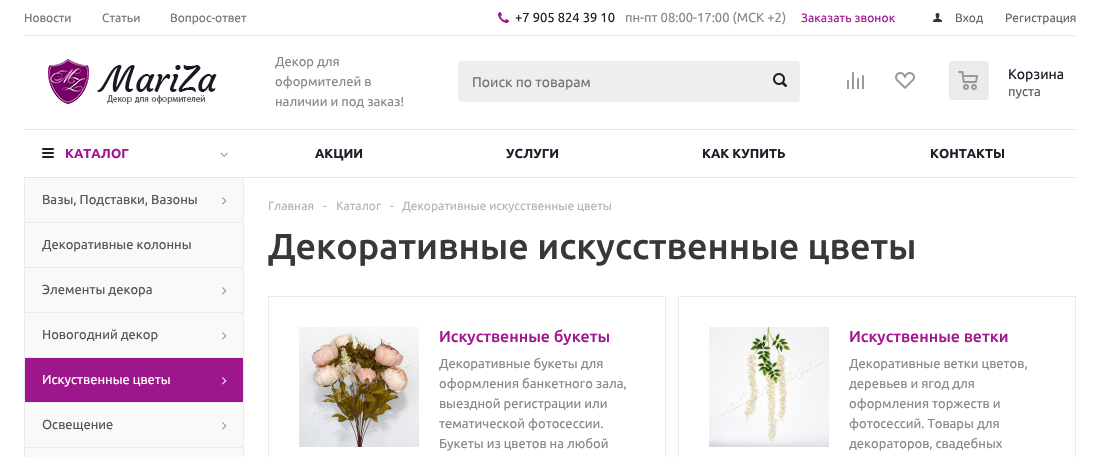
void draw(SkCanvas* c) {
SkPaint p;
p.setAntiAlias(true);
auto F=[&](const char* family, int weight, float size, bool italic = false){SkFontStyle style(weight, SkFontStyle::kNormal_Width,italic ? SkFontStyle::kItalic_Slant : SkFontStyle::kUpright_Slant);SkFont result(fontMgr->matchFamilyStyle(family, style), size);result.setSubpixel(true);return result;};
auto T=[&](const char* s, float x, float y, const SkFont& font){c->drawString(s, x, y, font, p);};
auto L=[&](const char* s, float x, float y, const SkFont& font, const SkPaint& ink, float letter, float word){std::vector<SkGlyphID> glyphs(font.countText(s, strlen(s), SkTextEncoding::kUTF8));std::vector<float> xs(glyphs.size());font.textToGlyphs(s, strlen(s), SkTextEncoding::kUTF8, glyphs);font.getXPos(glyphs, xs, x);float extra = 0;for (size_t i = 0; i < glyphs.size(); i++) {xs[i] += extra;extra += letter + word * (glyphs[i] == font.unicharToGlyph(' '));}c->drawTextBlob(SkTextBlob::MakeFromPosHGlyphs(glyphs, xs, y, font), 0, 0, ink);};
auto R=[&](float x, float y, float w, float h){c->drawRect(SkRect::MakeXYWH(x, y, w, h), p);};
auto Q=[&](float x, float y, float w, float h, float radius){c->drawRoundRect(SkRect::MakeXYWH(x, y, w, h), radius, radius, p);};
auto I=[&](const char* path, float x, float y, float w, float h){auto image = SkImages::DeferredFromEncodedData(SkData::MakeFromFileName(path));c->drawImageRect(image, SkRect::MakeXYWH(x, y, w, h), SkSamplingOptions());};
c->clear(0xffffffff);
auto f1 = F("Ubuntu",400,12);
p.setColor(0xff757575);
T("Новости",24,22,f1);
T("Статьи",102,22,f1);
T("Вопрос-ответ",170,22,f1);
I("1.png",498,12,11,11);
auto f2 = F("Ubuntu",400,13);
p.setColor(0xff1d2029);
T("+7 905 824 39 10",515,22,f2);
p.setColor(0xff888888);
T("пн-пт 08:00-17:00 (МСК +2)",625,22,f2);
p.setColor(0xffa31790);
L("Заказать звонок",801,22,f1,p,.1,0);
I("2.png",933,13,9,9);
p.setColor(0xff666666);
T("Вход",955,22,f1);
T("Регистрация",1005,22,f1);
p.setColor(0xffeaebec);
R(24,35,1052,1);
I("3.png",24,59,202,45);
p.setColor(0xff888888);
T("Декор для",275,66,f2);
T("оформителей в",275,86,f2);
T("наличии и под заказ!",275,106,f2);
p.setColor(0xffeeeeee);
Q(458,61,342,41,4);
auto f3 = F("Ubuntu",400,14);
p.setColor(0xff757575);
T("Поиск по товарам",472,87,f3);
I("4.png",773,73,14,15);
I("5.png",847,72,17,17);
I("6.png",895,72,20,17);
p.setColor(0xffeaebec);
Q(949,61,40,39,4);
I("7.png",958,71,20,19);
p.setColor(0xff1d2029);
T("Корзина",1008,79,f3);
p.setColor(0xff5f5f5f);
T("пуста",1008,96,f2);
p.setColor(0xffe5e5e5);
R(24,129,1052,1);
R(24,177,1052,1);
I("8.png",42,148,12,10);
auto f4 = F("Ubuntu",700,13);
p.setColor(0xffa31790);
T("КАТАЛОГ",65,158,f4);
I("9.png",220,152,8,5);
p.setColor(0xff1d2029);
T("АКЦИИ",315,158,f4);
T("УСЛУГИ",506,158,f4);
T("КАК КУПИТЬ",702,158,f4);
T("КОНТАКТЫ",930,158,f4);
p.setColor(0xfff9f9f9);
R(25,178,218,44);
p.setColor(0xffeaebec);
R(243,178,1,44);
R(24,178,1,44);
p.setColor(0xff555555);
T("Вазы, Подставки, Вазоны",42,204,f2);
I("10.png",222,197,5,8);
p.setColor(0xfff9f9f9);
R(25,223,218,44);
p.setColor(0xffeaebec);
R(24,222,220,1);
R(243,222,1,45);
R(24,222,1,45);
p.setColor(0xff555555);
T("Декоративные колонны",42,249,f2);
p.setColor(0xfff9f9f9);
R(25,268,218,44);
p.setColor(0xffeaebec);
R(24,267,220,1);
R(243,267,1,45);
R(24,267,1,45);
p.setColor(0xff555555);
T("Элементы декора",42,294,f2);
I("10.png",222,287,5,8);
p.setColor(0xfff9f9f9);
R(25,313,218,44);
p.setColor(0xffeaebec);
R(24,312,220,1);
R(243,312,1,45);
R(24,312,1,45);
p.setColor(0xff555555);
T("Новогодний декор",42,339,f2);
I("10.png",222,332,5,8);
p.setColor(0xff9e168c);
R(25,358,218,44);
p.setColor(0xffeaebec);
R(24,357,220,1);
R(243,357,1,45);
R(24,357,1,45);
p.setColor(0xffffffff);
T("Искуственные цветы",42,384,f2);
I("11.png",222,377,5,8);
p.setColor(0xfff9f9f9);
R(25,403,218,44);
p.setColor(0xffeaebec);
R(24,402,220,1);
R(243,402,1,45);
R(24,402,1,45);
p.setColor(0xff555555);
T("Освещение",42,429,f2);
I("10.png",222,422,5,8);
p.setColor(0xfff9f9f9);
R(25,448,218,9);
p.setColor(0xffeaebec);
R(24,447,220,1);
R(243,447,1,10);
R(24,447,1,10);
p.setColor(0xffb6b5b5);
T("Главная",268,210,f1);
T("-",323,210,f1);
T("Каталог",336,210,f1);
T("-",390,210,f1);
T("Декоративные искусственные цветы",402,210,f1);
auto f5 = F("Ubuntu",500,36);
p.setColor(0xff383838);
T("Декоративные искусственные цветы",268,259,f5);
p.setStroke(true);
p.setStrokeWidth(1);
p.setColor(0xffeaebec);
c->drawRect(SkRect::MakeXYWH(268.5,296.5,397,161),p);
I("12.png",299,327,120,120);
auto f6 = F("Ubuntu",500,16);
p.setStroke(false);
p.setColor(0xffa31790);
T("Искуственные букеты",439,342,f6);
p.setColor(0xff888888);
T("Декоративные букеты для",439,368,f2);
T("оформления банкетного зала,",439,388,f2);
T("выездной регистрации или",439,408,f2);
T("тематической фотосессии.",439,428,f2);
T("Букеты из цветов на любой",439,448,f2);
p.setStroke(true);
p.setColor(0xffeaebec);
c->drawRect(SkRect::MakeXYWH(678.5,296.5,397,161),p);
I("13.png",709,327,120,120);
p.setStroke(false);
p.setColor(0xffa31790);
T("Искуственные ветки",849,342,f6);
p.setColor(0xff888888);
T("Декоративные ветки цветов,",849,368,f2);
T("деревьев и ягод для",849,388,f2);
T("оформления торжеств и",849,408,f2);
T("фотосессий. Товары для",849,428,f2);
T("декораторов, свадебных",849,448,f2);
}
